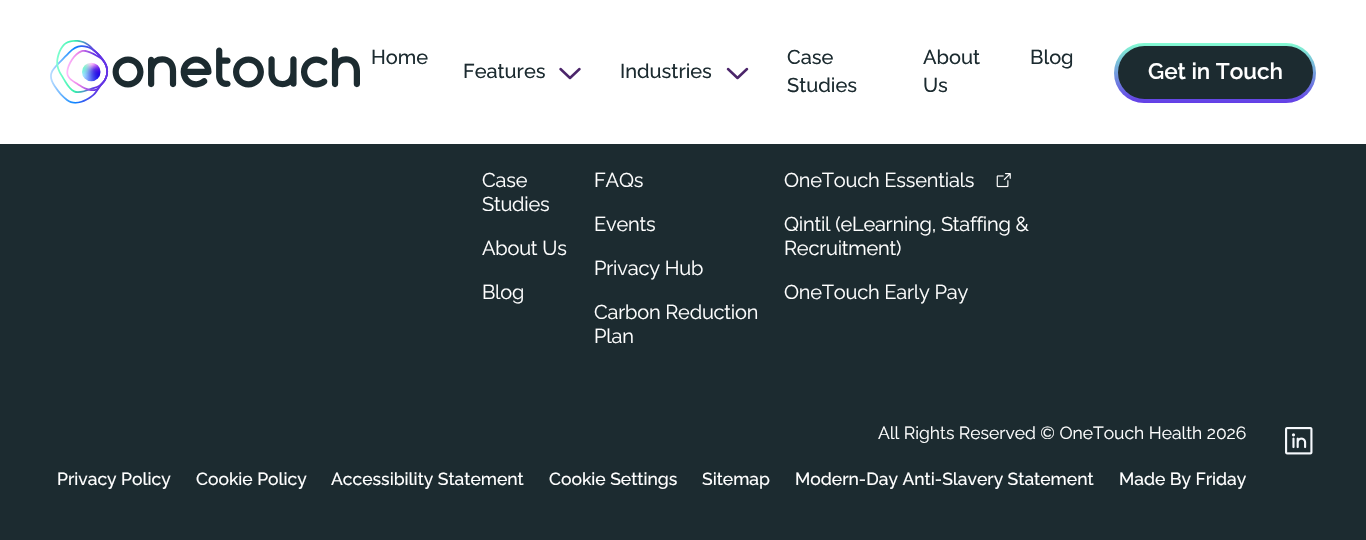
void draw(SkCanvas* c) {
SkPaint p;
p.setAntiAlias(true);
auto F=[&](const char* family, int weight, float size, bool italic = false){SkFontStyle style(weight, SkFontStyle::kNormal_Width,italic ? SkFontStyle::kItalic_Slant : SkFontStyle::kUpright_Slant);SkFont result(fontMgr->matchFamilyStyle(family, style), size);result.setSubpixel(true);return result;};
auto T=[&](const char* s, float x, float y, const SkFont& font){c->drawString(s, x, y, font, p);};
auto L=[&](const char* s, float x, float y, const SkFont& font, const SkPaint& ink, float letter, float word){std::vector<SkGlyphID> glyphs(font.countText(s, strlen(s), SkTextEncoding::kUTF8));std::vector<float> xs(glyphs.size());font.textToGlyphs(s, strlen(s), SkTextEncoding::kUTF8, glyphs);font.getXPos(glyphs, xs, x);float extra = 0;for (size_t i = 0; i < glyphs.size(); i++) {xs[i] += extra;extra += letter + word * (glyphs[i] == font.unicharToGlyph(' '));}c->drawTextBlob(SkTextBlob::MakeFromPosHGlyphs(glyphs, xs, y, font), 0, 0, ink);};
auto R=[&](float x, float y, float w, float h){c->drawRect(SkRect::MakeXYWH(x, y, w, h), p);};
auto Q=[&](float x, float y, float w, float h, float radius){c->drawRoundRect(SkRect::MakeXYWH(x, y, w, h), radius, radius, p);};
auto I=[&](const char* path, float x, float y, float w, float h){auto image = SkImages::DeferredFromEncodedData(SkData::MakeFromFileName(path));c->drawImageRect(image, SkRect::MakeXYWH(x, y, w, h), SkSamplingOptions());};
auto P=[&](const char* data, bool evenOdd = false){SkPath result = *SkParsePath::FromSVGString(data);if (evenOdd) result.setFillType(SkPathFillType::kEvenOdd);return result;};
c->clear(0xff1c2b30);
p.setColor(0xffffffff);
R(0,0,1366,144);
I("1.png",50,40,310,64);
auto f1 = F("Raleway",500,20);
p.setColor(0xff1c2b30);
T("Home",371,64,f1);
T("Case",787,64,f1);
T("Studies",787,92,f1);
T("About",923,64,f1);
T("Us",923,92,f1);
T("Blog",1030,64,f1);
T("Features",463,78,f1);
p.setStroke(true);
p.setStrokeWidth(2.5);
p.setStrokeCap(SkPaint::kRound_Cap);
p.setStrokeJoin(SkPaint::kRound_Join);
p.setColor(0xff4b256a);
c->drawPath(P("M579.5 69l-9.5 9l-9.5-9"),p);
p.setStroke(false);
p.setColor(0xff1c2b30);
T("Industries",620,78,f1);
p.setStroke(true);
p.setColor(0xff4b256a);
c->drawPath(P("M747 69l-9.5 9l-9.5-9"),p);
p.setStroke(false);
{
const SkColor colors[] = {0xff84ffd2,0xff633de7};
const float stops[] = {0,1};
const SkPoint ends[] = {{1215,42}, {1215,103}};
p.setShader(SkGradientShader::MakeLinear(ends, colors, stops, 2, SkTileMode::kClamp));
p.setAlpha(255);
}
Q(1114,43,202,60,30);
p.setShader(nullptr);
p.setColor(0xff1c2b30);
Q(1118,46,195,53,26.5);
auto f2 = F("Raleway",600,22.5);
p.setColor(0xffffffff);
T("Get in Touch",1148,79,f2);
auto f3 = F("Raleway",400,20);
L("Case",482,187,f3,p,-.2,0);
L("Studies",482,211,f3,p,-.2,0);
L("About Us",482,255,f3,p,-.2,0);
L("Blog",482,299,f3,p,-.2,0);
L("FAQs",594,187,f3,p,-.2,0);
L("Events",594,231,f3,p,-.2,0);
L("Privacy Hub",594,275,f3,p,-.2,0);
L("Carbon Reduction",594,319,f3,p,-.2,0);
L("Plan",594,343,f3,p,-.2,0);
L("OneTouch Essentials",784,187,f3,p,-.2,0);
I("2.png",996,173,15,15);
L("Qintil (eLearning, Staffing &",784,231,f3,p,-.2,0);
L("Recruitment)",784,255,f3,p,-.2,0);
L("OneTouch Early Pay",784,299,f3,p,-.2,0);
auto f4 = F("Raleway",400,17.5);
T("All Rights Reserved © OneTouch Health 2026",878,439,f4);
auto f5 = F("Raleway",500,17.5);
T("Privacy Policy",57,485,f5);
T("Cookie Policy",196,485,f5);
T("Accessibility Statement",331,485,f5);
T("Cookie Settings",549,485,f5);
T("Sitemap",702,485,f5);
T("Modern-Day Anti-Slavery Statement",795,485,f5);
T("Made By Friday",1119,485,f5);
I("3.png",1285,427,28,28);
}
